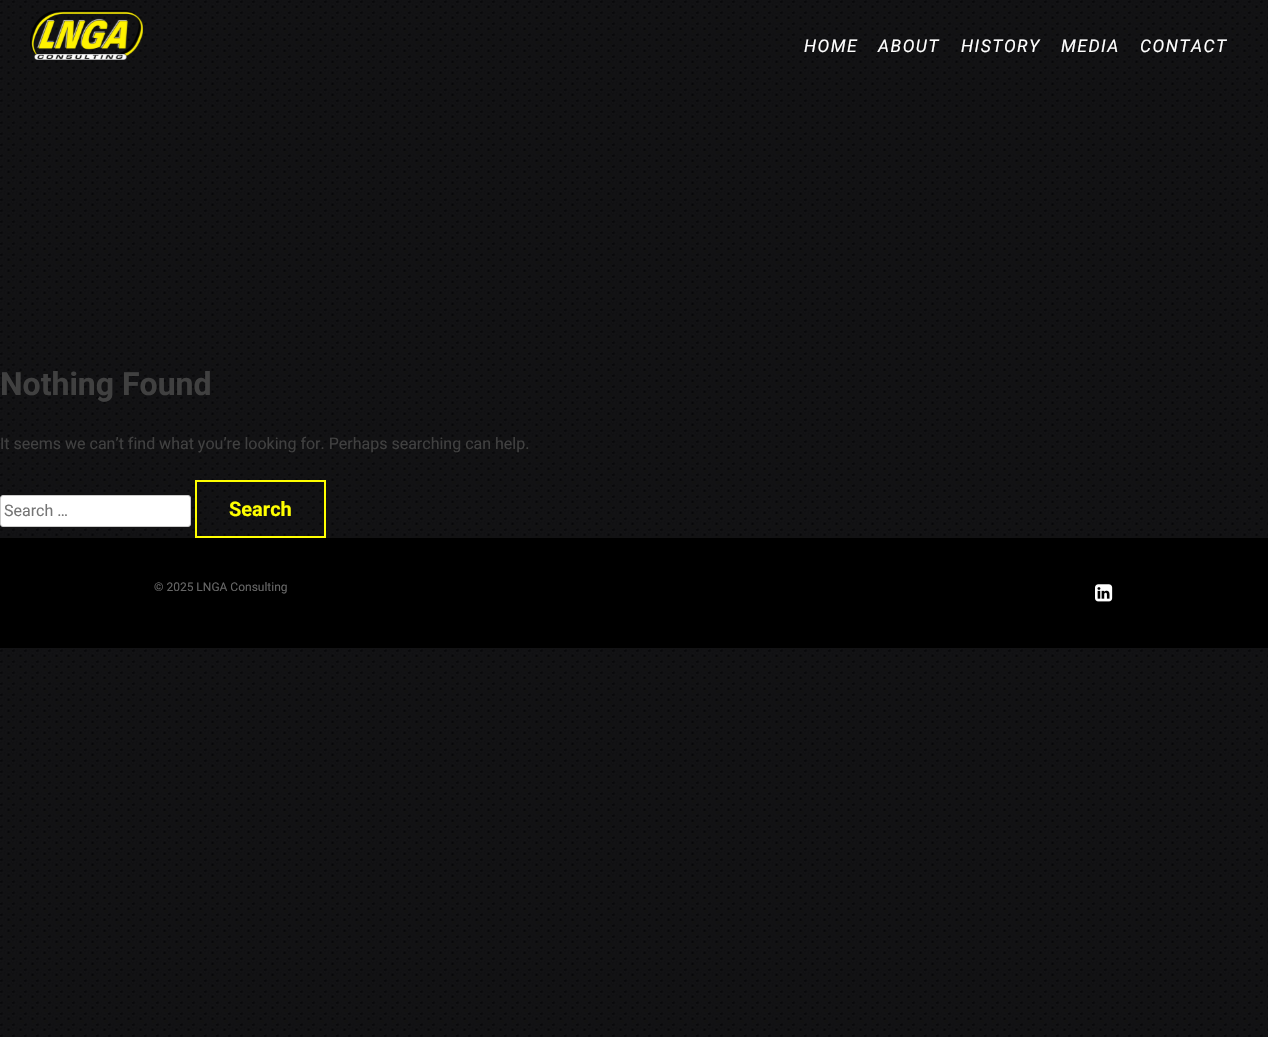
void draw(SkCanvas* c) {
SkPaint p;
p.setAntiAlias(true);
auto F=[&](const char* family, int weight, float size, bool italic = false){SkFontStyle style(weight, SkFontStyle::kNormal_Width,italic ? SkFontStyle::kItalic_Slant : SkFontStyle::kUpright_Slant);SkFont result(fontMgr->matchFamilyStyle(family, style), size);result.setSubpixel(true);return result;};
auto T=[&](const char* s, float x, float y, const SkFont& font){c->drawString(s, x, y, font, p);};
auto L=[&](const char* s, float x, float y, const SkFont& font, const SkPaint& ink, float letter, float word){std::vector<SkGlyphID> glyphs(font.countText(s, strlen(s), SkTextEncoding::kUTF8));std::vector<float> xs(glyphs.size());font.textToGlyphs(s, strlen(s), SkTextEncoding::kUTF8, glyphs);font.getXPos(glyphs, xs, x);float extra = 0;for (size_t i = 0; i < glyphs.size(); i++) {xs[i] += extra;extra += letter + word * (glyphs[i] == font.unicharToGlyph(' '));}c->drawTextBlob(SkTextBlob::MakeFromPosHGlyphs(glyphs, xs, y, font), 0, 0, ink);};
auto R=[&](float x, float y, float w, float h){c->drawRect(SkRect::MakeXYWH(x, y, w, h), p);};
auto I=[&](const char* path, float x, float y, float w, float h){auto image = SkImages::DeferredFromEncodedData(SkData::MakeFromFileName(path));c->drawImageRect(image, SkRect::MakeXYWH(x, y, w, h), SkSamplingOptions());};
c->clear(0xffffffff);
I("1.png",0,0,1268,1037);
I("2.png",30,10,113,50);
auto f1 = F("Roboto",400,17.5,true);
p.setColor(0xffffffff);
L("HOME",804,52,f1,p,1.5,0);
L("ABOUT",878,52,f1,p,1.5,0);
L("HISTORY",961,52,f1,p,1.5,0);
L("MEDIA",1061,52,f1,p,1.5,0);
L("CONTACT",1140,52,f1,p,1.5,0);
auto f2 = F("Roboto",700,32);
p.setColor(0xff404040);
T("Nothing Found",0,395,f2);
auto f3 = F("Roboto",400,16);
T("It seems we can’t find what you’re looking for. Perhaps searching can help.",0,449,f3);
p.setColor(0xffffffff);
c->drawRoundRect(SkRect::MakeXYWH(.5,495.5,190,31),2.5,2.5,p);
p.setStroke(true);
p.setStrokeWidth(1);
p.setColor(0xffcccccc);
c->drawRoundRect(SkRect::MakeXYWH(.5,495.5,190,31),2.5,2.5,p);
p.setStroke(false);
p.setColor(0xff757575);
T("Search …",4,516,f3);
p.setStroke(true);
p.setStrokeWidth(2);
p.setColor(0xffffff00);
c->drawRect(SkRect::MakeXYWH(196,481,129,56),p);
auto f4 = F("Roboto",700,20);
p.setStroke(false);
T("Search",229,516,f4);
p.setColor(0xff000000);
R(0,538,1268,110);
auto f5 = F("Roboto",400,12);
p.setColor(0xff666666);
T("© 2025 LNGA Consulting",154,591,f5);
I("3.png",1095,584,18,18);
}
